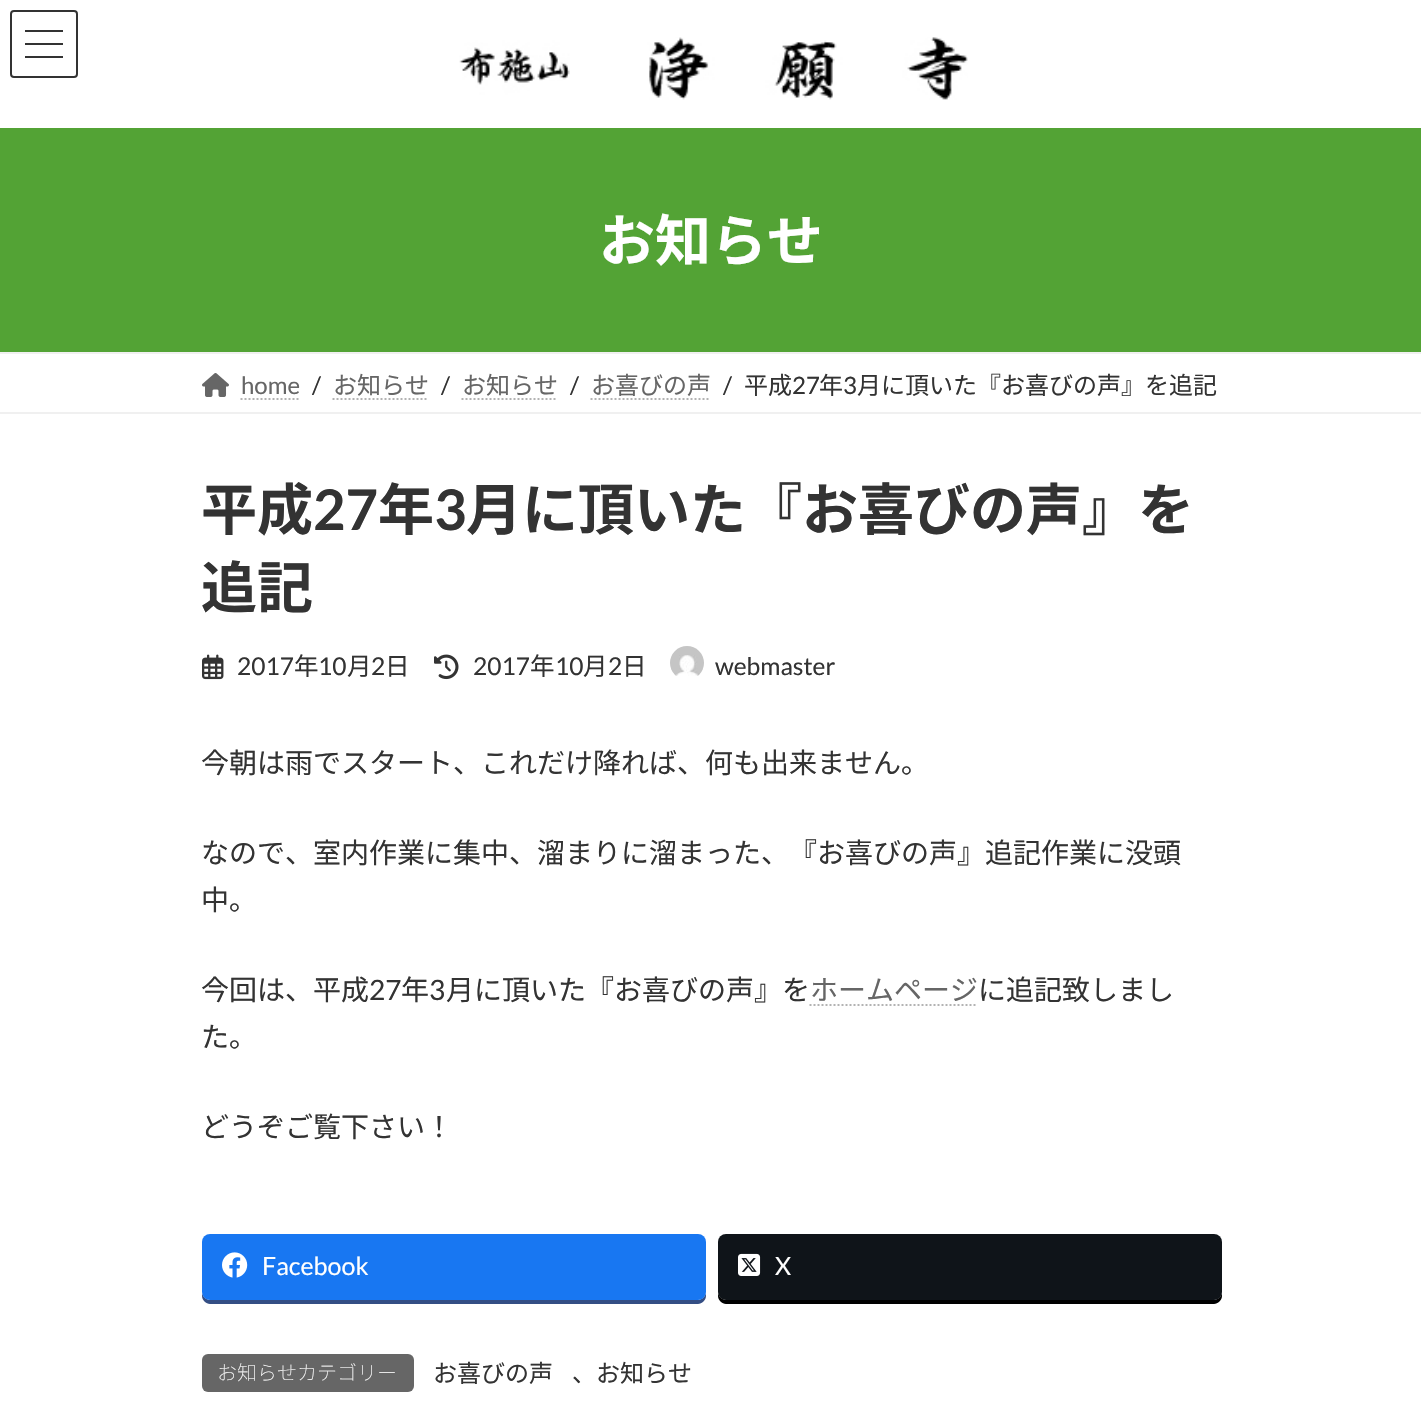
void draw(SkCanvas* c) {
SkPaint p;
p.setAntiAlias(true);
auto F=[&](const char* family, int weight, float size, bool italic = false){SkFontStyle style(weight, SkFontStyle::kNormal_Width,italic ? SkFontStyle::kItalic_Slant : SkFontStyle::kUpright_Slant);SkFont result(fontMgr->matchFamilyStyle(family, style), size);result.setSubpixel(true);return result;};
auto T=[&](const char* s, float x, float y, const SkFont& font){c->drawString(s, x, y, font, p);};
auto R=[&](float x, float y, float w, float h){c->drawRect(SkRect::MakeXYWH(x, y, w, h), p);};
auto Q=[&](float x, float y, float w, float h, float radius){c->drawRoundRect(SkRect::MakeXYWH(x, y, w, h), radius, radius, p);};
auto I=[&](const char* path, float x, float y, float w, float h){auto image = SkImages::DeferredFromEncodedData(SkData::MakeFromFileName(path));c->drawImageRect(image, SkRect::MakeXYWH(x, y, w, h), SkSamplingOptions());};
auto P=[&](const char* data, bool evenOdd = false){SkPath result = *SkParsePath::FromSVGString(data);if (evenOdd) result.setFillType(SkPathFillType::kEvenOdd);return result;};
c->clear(0xffffffff);
p.setColor(0xff333333);
R(25,30,38,2);
R(25,43,38,2);
R(25,56,38,2);
p.setStroke(true);
p.setStrokeWidth(2);
c->drawRoundRect(SkRect::MakeXYWH(11,11,66,66),3,3,p);
I("1.png",459,37,509,63);
p.setStroke(false);
p.setColor(0xff53a335);
R(0,128,1421,224);
auto f1 = F("Noto Sans JP",700,56);
p.setColor(0xffffffff);
T("お知らせ",599,261,f1);
p.setColor(0xfff0f0f0);
R(0,352,1421,2);
R(0,412,1421,2);
I("2.png",202,373,27,24);
auto f2 = F("Lato",400,24);
p.setColor(0xff666666);
T("home",241,394,f2);
p.setStroke(true);
p.setColor(0xffb3b3b3);
p.setPathEffect(SkDashPathEffect::Make({{2,2}}, 0));
c->drawPath(P("M240.5 399h59"),p);
p.setPathEffect(nullptr);
p.setStroke(false);
p.setColor(0xff333333);
T("/",312,394,f2);
auto f3 = F("Noto Sans JP",400,24);
p.setColor(0xff666666);
T("お知らせ",333,394,f3);
p.setStroke(true);
p.setColor(0xffb3b3b3);
p.setPathEffect(SkDashPathEffect::Make({{2,2}}, 0));
c->drawPath(P("M332.5 399h96"),p);
p.setPathEffect(nullptr);
p.setStroke(false);
p.setColor(0xff333333);
T("/",441,394,f2);
p.setColor(0xff666666);
T("お知らせ",462,394,f3);
p.setStroke(true);
p.setColor(0xffb3b3b3);
p.setPathEffect(SkDashPathEffect::Make({{2,2}}, 0));
c->drawPath(P("M461.5 399h96"),p);
p.setPathEffect(nullptr);
p.setStroke(false);
p.setColor(0xff333333);
T("/",570,394,f2);
p.setColor(0xff666666);
T("お喜びの声",591,394,f3);
p.setStroke(true);
p.setColor(0xffb3b3b3);
p.setPathEffect(SkDashPathEffect::Make({{2,2}}, 0));
c->drawPath(P("M590.5 399h120"),p);
p.setPathEffect(nullptr);
p.setStroke(false);
p.setColor(0xff333333);
T("/",723,394,f2);
T("平成",744,394,f3);
T("27",792,394,f2);
T("年",819,394,f3);
T("3",843,394,f2);
T("月に頂いた『お喜びの声』を追記",857,394,f3);
T("平成",201,530,f1);
auto f4 = F("Lato",700,56);
T("27",313,530,f4);
T("年",378,530,f1);
T("3",434,530,f4);
T("月に頂いた『お喜びの声』を",466,530,f1);
T("追記",201,608,f1);
I("3.png",202,654,22,26);
auto f5 = F("Lato",400,24.5);
T("2017",237,675,f5);
auto f6 = F("Noto Sans JP",400,24.5);
T("年",294,675,f6);
T("10",318,675,f5);
T("月",347,675,f6);
T("2",371,675,f5);
T("日",385,675,f6);
I("4.png",434,654,25,26);
T("2017",473,675,f5);
T("年",530,675,f6);
T("10",555,675,f5);
T("月",583,675,f6);
T("2",608,675,f5);
T("日",622,675,f6);
I("5.png",670,646,34,30);
T("webmaster",715,675,f5);
auto f7 = F("Noto Sans JP",400,28);
T("今朝は雨でスタート、これだけ降れば、何も出来ません。",201,773,f7);
T("なので、室内作業に集中、溜まりに溜まった、『お喜びの声』追記作業に没頭",201,863,f7);
T("中。",201,910,f7);
T("今回は、平成",201,1000,f7);
auto f8 = F("Lato",400,28);
T("27",369,1000,f8);
T("年",401,1000,f7);
T("3",429,1000,f8);
T("月に頂いた『お喜びの声』を",446,1000,f7);
p.setColor(0xff666666);
T("ホームページ",810,1000,f7);
p.setStroke(true);
p.setColor(0xffb3b3b3);
p.setPathEffect(SkDashPathEffect::Make({{2,2}}, 0));
c->drawPath(P("M809.5 1005h168"),p);
p.setPathEffect(nullptr);
p.setStroke(false);
p.setColor(0xff333333);
T("に追記致しまし",978,1000,f7);
T("た。",201,1047,f7);
T("どうぞご覧下さい！",201,1137,f7);
p.setColor(0xff344e84);
c->drawPath(P("M202 1292v4c0 4 4 8 8 8h488c4 0 8-4 8-8v-4c0 4-4 8-8 8h-488c-4 0-8-4-8-8z"),p);
p.setColor(0xff1877f2);
Q(202,1234,504,66,8);
I("6.png",222,1252,26,26);
auto f9 = F("Lato",400,25);
p.setColor(0xffffffff);
T("Facebook",262,1275,f9);
p.setColor(0xff000000);
c->drawPath(P("M718 1292v4c0 4 4 8 8 8h488c4 0 8-4 8-8v-4c0 4-4 8-8 8h-488c-4 0-8-4-8-8z"),p);
p.setColor(0xff0f1419);
Q(718,1234,504,66,8);
I("7.png",738,1253,23,23);
p.setColor(0xffffffff);
T("X",775,1275,f9);
p.setColor(0xff666666);
Q(202,1354,212,38,6);
auto f10 = F("Noto Sans JP",100,20);
p.setColor(0xffffffff);
T("お知らせカテゴリー",217,1380,f10);
p.setColor(0xff333333);
T("お喜びの声",433,1382,f3);
T("、お知らせ",572,1382,f3);
}
